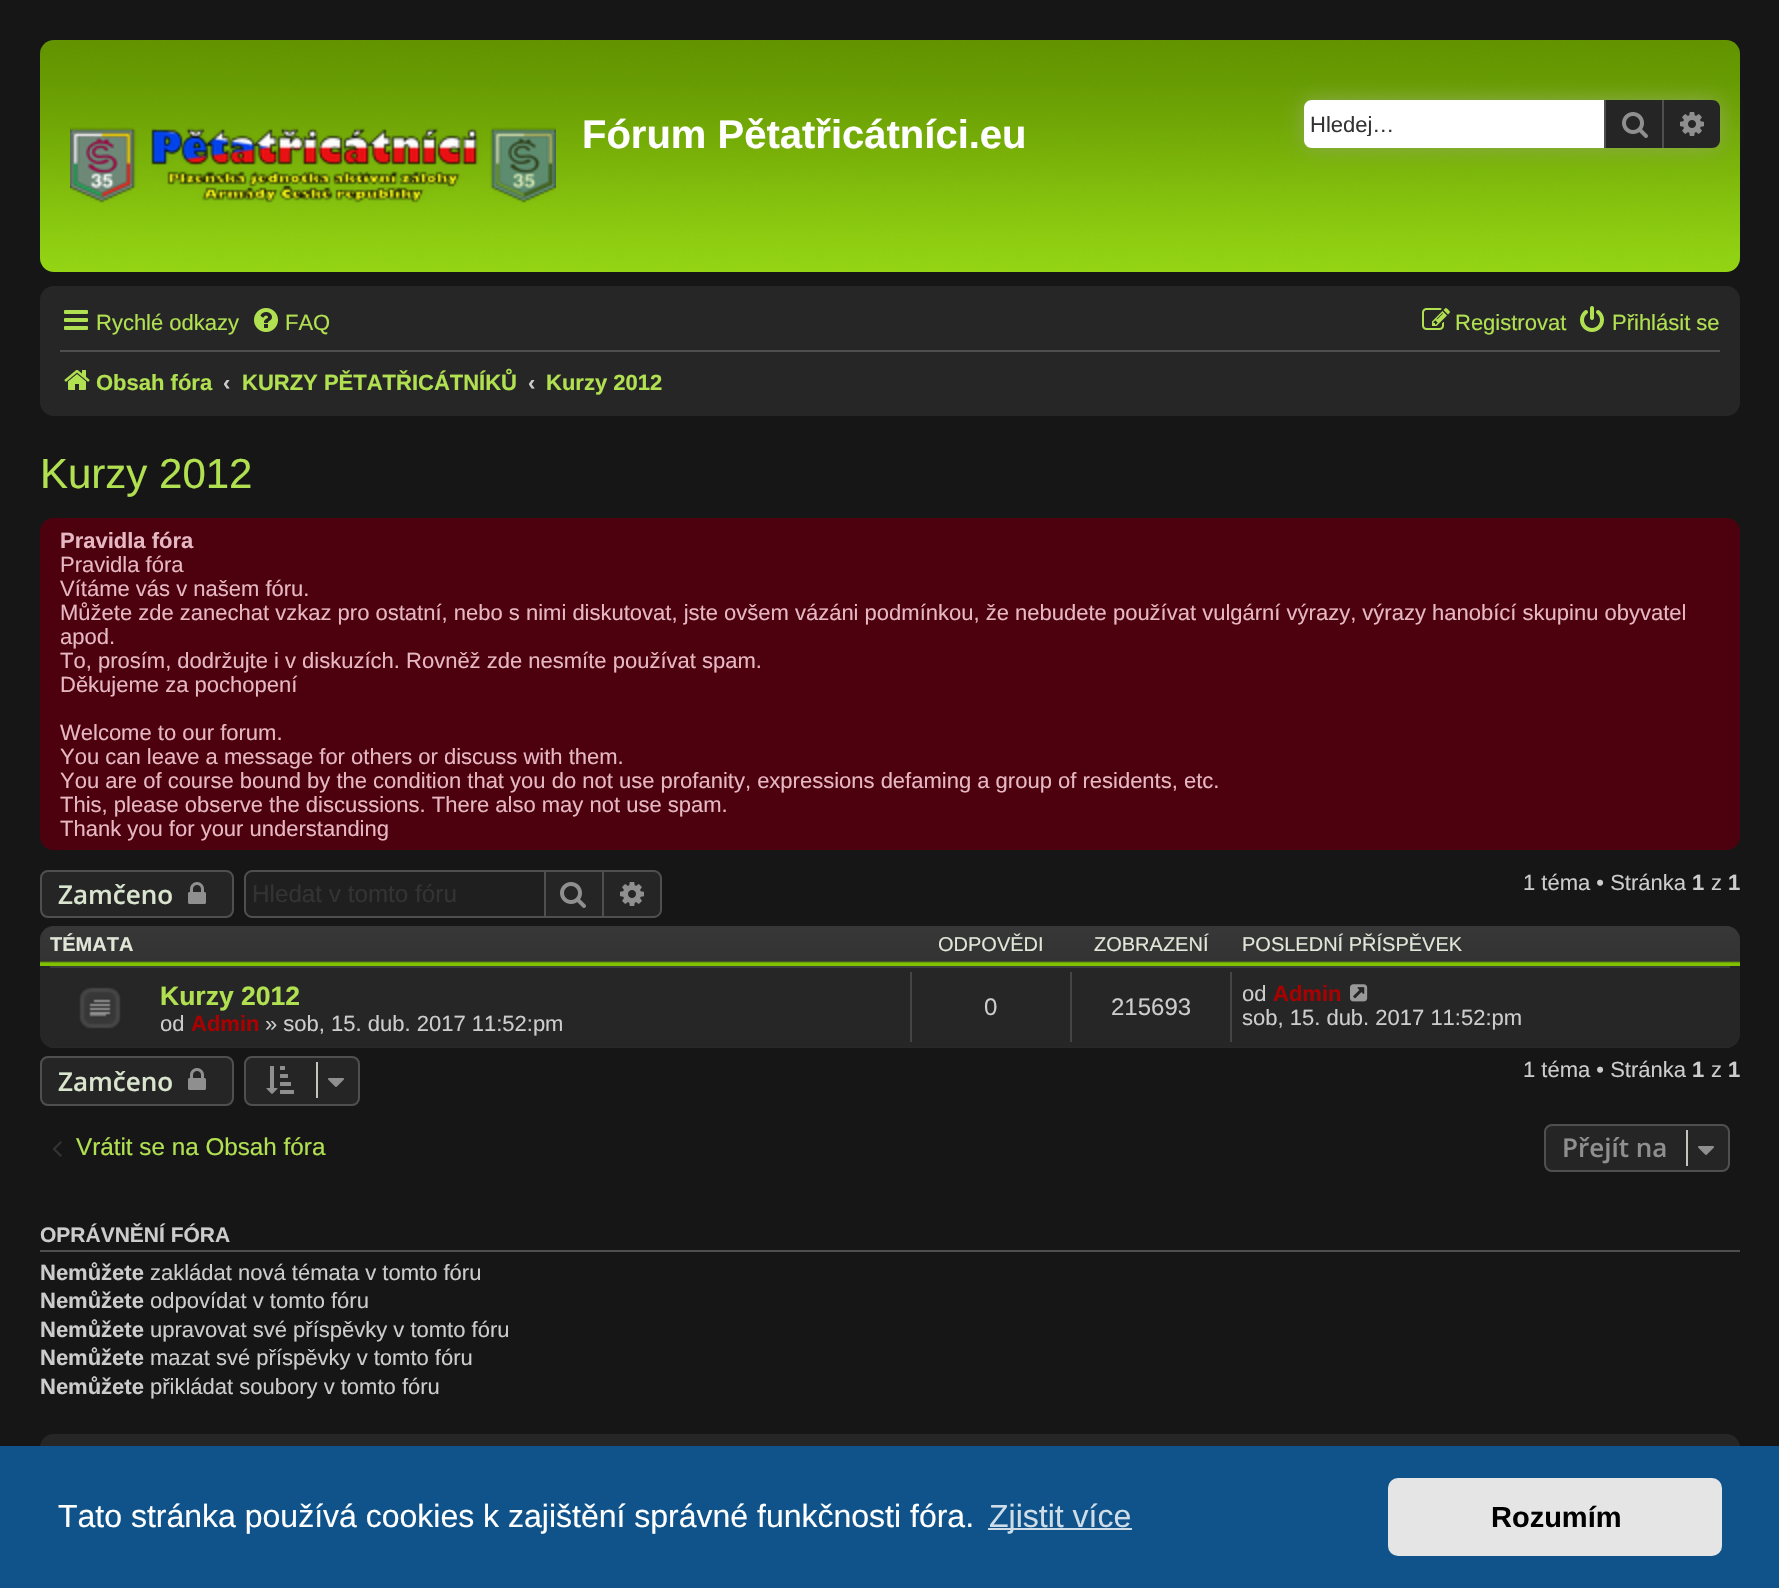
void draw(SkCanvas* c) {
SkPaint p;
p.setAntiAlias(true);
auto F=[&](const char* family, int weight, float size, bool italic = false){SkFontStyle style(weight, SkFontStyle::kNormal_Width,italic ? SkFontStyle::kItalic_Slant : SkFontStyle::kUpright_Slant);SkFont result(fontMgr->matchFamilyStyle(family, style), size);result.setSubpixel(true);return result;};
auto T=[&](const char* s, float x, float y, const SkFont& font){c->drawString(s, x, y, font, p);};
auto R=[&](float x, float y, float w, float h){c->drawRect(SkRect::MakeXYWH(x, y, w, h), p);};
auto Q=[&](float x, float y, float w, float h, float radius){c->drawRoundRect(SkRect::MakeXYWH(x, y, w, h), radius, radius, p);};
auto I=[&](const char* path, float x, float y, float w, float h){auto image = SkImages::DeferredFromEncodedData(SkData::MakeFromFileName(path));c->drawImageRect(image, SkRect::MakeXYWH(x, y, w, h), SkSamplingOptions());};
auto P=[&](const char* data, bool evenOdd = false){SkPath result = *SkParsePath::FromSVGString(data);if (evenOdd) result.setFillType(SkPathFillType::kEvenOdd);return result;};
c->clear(0xff161616);
I("1.png",40,40,1700,232);
I("2.png",70,127,486,76);
auto f1 = F("Liberation Sans",700,40);
p.setColor(0xffffffff);
T("Fórum Pětatřicátníci.eu",582,148,f1);
p.setColor(0xff8caa54);
p.setMaskFilter(SkMaskFilter::MakeBlur(kNormal_SkBlurStyle, 10));
c->drawRoundRect(SkRect::MakeXYWH(1304,100,416,48),8,8,p);
p.setMaskFilter(nullptr);
p.setColor(0xffffffff);
c->drawPath(P("M1312 100h292v48h-292c-4.5 0-8-3.5-8-8v-32c0-4.5 3.5-8 8-8z"),p);
c->save();
c->clipRect(SkRect::MakeXYWH(1310,112,280,24));
auto f2 = F("Liberation Sans",400,22);
p.setColor(0xff333333);
T("Hledej…",1310,132,f2);
c->restore();
p.setColor(0xff252525);
R(1606,100,56,48);
p.setColor(0xff4f4f4f);
R(1662,100,2,48);
R(1604,100,2,48);
I("3.png",1622,112,26,26);
p.setColor(0xff252525);
c->drawPath(P("M1664 100h48c4.5 0 8 3.5 8 8v32c0 4.5-3.5 8-8 8h-48z"),p);
I("4.png",1680,112,24,24);
p.setColor(0xff262626);
Q(40,286,1700,130,14);
I("5.png",64,310,24,20);
p.setColor(0xffb1e051);
T("Rychlé odkazy",96,330,f2);
I("6.png",254,308,24,24);
T("FAQ",285,330,f2);
I("7.png",1422,308,28,22);
T("Registrovat",1455,330,f2);
I("8.png",1580,306,24,26);
T("Přihlásit se",1612,330,f2);
p.setColor(0xff4f4f4f);
R(60,350,1660,2);
I("9.png",64,370,26,20);
auto f3 = F("Liberation Sans",700,22);
p.setColor(0xffb1e051);
T("Obsah fóra",96,390,f3);
p.setColor(0xffcccccc);
T("‹",223,390,f3);
p.setColor(0xffb1e051);
T("KURZY PĚTATŘICÁTNÍKŮ",242,390,f3);
p.setColor(0xffcccccc);
T("‹",528,390,f3);
p.setColor(0xffb1e051);
T("Kurzy 2012",546,390,f3);
auto f4 = F("Liberation Sans",400,42);
T("Kurzy 2012",40,488,f4);
p.setColor(0xff4d000d);
Q(40,518,1700,332,14);
p.setColor(0xffe5b8c2);
T("Pravidla fóra",60,548,f3);
T("Pravidla fóra",60,572,f2);
T("Vítáme vás v našem fóru.",60,596,f2);
T("Můžete zde zanechat vzkaz pro ostatní, nebo s nimi diskutovat, jste ovšem vázáni podmínkou, že nebudete používat vulgární výrazy, výrazy hanobící skupinu obyvatel",60,620,f2);
T("apod.",60,644,f2);
T("To, prosím, dodržujte i v diskuzích. Rovněž zde nesmíte používat spam.",60,668,f2);
T("Děkujeme za pochopení",60,692,f2);
T("Welcome to our forum.",60,740,f2);
T("You can leave a message for others or discuss with them.",60,764,f2);
T("You are of course bound by the condition that you do not use profanity, expressions defaming a group of residents, etc.",60,788,f2);
T("This, please observe the discussions. There also may not use spam.",60,812,f2);
T("Thank you for your understanding",60,836,f2);
p.setColor(0xffcccccc);
T("1 téma • Stránka",1523,890,f2);
T("1",1692,890,f3);
T("z",1711,890,f2);
T("1",1728,890,f3);
p.setColor(0xff252525);
c->drawRoundRect(SkRect::MakeXYWH(41,871,192,46),7,7,p);
p.setStroke(true);
p.setStrokeWidth(2);
p.setColor(0xff4f4f4f);
c->drawRoundRect(SkRect::MakeXYWH(41,871,192,46),7,7,p);
auto f5 = F("Open Sans",600,26);
p.setStroke(false);
p.setColor(0xffdae5cf);
T("Zamčeno",58,904,f5);
I("10.png",188,882,18,22);
p.setColor(0xff1f1f1f);
c->drawPath(P("M252 872h292v44h-292c-3.5 0-6-2.5-6-6v-32c0-3.5 2.5-6 6-6z"),p);
p.setColor(0xff4f4f4f);
c->drawPath(P("M252 870h292v48h-292c-4 0-8-4-8-8v-32c0-4 4-8 8-8zm0 2h292v44h-292c-3 0-6-3-6-6v-32c0-3 3-6 6-6z",true),p);
auto f6 = F("Liberation Sans",400,24.25);
p.setColor(0xff333333);
T("Hledat v tomto fóru",252,902,f6);
p.setColor(0xff252525);
c->drawRect(SkRect::MakeXYWH(545,871,58,46),p);
p.setStroke(true);
p.setColor(0xff4f4f4f);
c->drawRect(SkRect::MakeXYWH(545,871,58,46),p);
I("3.png",560,882,26,26);
p.setStroke(false);
p.setColor(0xff252525);
c->drawPath(P("M604 872h50c3.5 0 6 2.5 6 6v32c0 3.5-2.5 6-6 6h-50z"),p);
p.setColor(0xff4f4f4f);
c->drawPath(P("M604 870h50c4 0 8 4 8 8v32c0 4-4 8-8 8h-50zm0 2h50c3 0 6 3 6 6v32c0 3-3 6-6 6h-50z",true),p);
I("4.png",620,882,24,24);
p.setColor(0xff262626);
Q(40,926,1700,122,14);
I("11.png",40,926,1700,40);
auto f7 = F("Liberation Sans",700,20);
p.setColor(0xffe1e6d8);
T("TÉMATA",50,951,f7);
auto f8 = F("Liberation Sans",400,20);
T("ODPOVĚDI",938,951,f8);
T("ZOBRAZENÍ",1094,951,f8);
T("POSLEDNÍ PŘÍSPĚVEK",1242,951,f8);
p.setColor(0xff3d3d3d);
R(50,966,1680,2);
p.setColor(0xff282828);
R(50,1047,1680,1);
I("12.png",79,987,42,42);
auto f9 = F("Liberation Sans",700,26.5);
p.setColor(0xffb1e051);
T("Kurzy 2012",160,1005,f9);
p.setColor(0xffcccccc);
T("od",160,1031,f2);
p.setColor(0xffaa0000);
T("Admin",191,1031,f3);
p.setColor(0xffcccccc);
T("» sob, 15. dub. 2017 11:52:pm",265,1031,f2);
p.setColor(0xff454545);
R(910,972,2,70);
auto f10 = F("Liberation Sans",400,24);
p.setColor(0xffcccccc);
T("0",984,1015,f10);
p.setColor(0xff454545);
R(1070,972,2,70);
p.setColor(0xffcccccc);
T("215693",1111,1015,f10);
p.setColor(0xff454545);
R(1230,972,2,70);
p.setColor(0xffcccccc);
T("od",1242,1001,f2);
p.setColor(0xffaa0000);
T("Admin",1273,1001,f3);
I("13.png",1350,984,18,18);
p.setColor(0xffcccccc);
T("sob, 15. dub. 2017 11:52:pm",1242,1025,f2);
p.setColor(0xff252525);
c->drawRoundRect(SkRect::MakeXYWH(245,1057,114,48),7,7,p);
p.setStroke(true);
p.setColor(0xff4f4f4f);
c->drawRoundRect(SkRect::MakeXYWH(245,1057,114,48),7,7,p);
I("14.png",266,1066,28,28);
p.setStroke(false);
p.setColor(0xffc7c3bf);
R(316,1062,2,36);
I("15.png",328,1078,16,9);
p.setColor(0xffcccccc);
T("1 téma • Stránka",1523,1077,f2);
T("1",1692,1077,f3);
T("z",1711,1077,f2);
T("1",1728,1077,f3);
p.setColor(0xff252525);
c->drawRoundRect(SkRect::MakeXYWH(41,1057,192,48),7,7,p);
p.setStroke(true);
p.setColor(0xff4f4f4f);
c->drawRoundRect(SkRect::MakeXYWH(41,1057,192,48),7,7,p);
p.setStroke(false);
p.setColor(0xffdae5cf);
T("Zamčeno",58,1091,f5);
I("10.png",188,1068,18,22);
I("16.png",53,1141,9,16);
p.setColor(0xffb1e051);
T("Vrátit se na Obsah fóra",76,1155,f6);
p.setColor(0xff252525);
c->drawRoundRect(SkRect::MakeXYWH(1545,1125,184,46),7,7,p);
p.setStroke(true);
p.setColor(0xff4f4f4f);
c->drawRoundRect(SkRect::MakeXYWH(1545,1125,184,46),7,7,p);
p.setStroke(false);
p.setColor(0xff8f8f8f);
T("Přejít na",1562,1157,f5);
p.setColor(0xffc7c3bf);
R(1686,1130,2,36);
I("15.png",1698,1146,16,9);
p.setColor(0xff4f4f4f);
R(40,1250,1700,2);
auto f11 = F("Liberation Sans",700,21);
p.setColor(0xffcccccc);
T("OPRÁVNĚNÍ FÓRA",40,1242,f11);
T("Nemůžete",40,1280,f3);
T("zakládat nová témata v tomto fóru",150,1280,f2);
T("Nemůžete",40,1308,f3);
T("odpovídat v tomto fóru",150,1308,f2);
T("Nemůžete",40,1337,f3);
T("upravovat své příspěvky v tomto fóru",150,1337,f2);
T("Nemůžete",40,1365,f3);
T("mazat své příspěvky v tomto fóru",150,1365,f2);
T("Nemůžete",40,1394,f3);
T("přikládat soubory v tomto fóru",150,1394,f2);
p.setColor(0xff262626);
Q(40,1434,1700,70,14);
p.setColor(0xff0f538a);
R(0,1446,1779,142);
auto f12 = F("Liberation Sans",400,32);
p.setColor(0xffffffff);
T("Tato stránka používá cookies k zajištění správné funkčnosti fóra.",58,1527,f12);
p.setColor(0xffcfdde8);
R(988,1528,144,2);
T("Zjistit více",989,1527,f12);
p.setColor(0xffe5e5e5);
Q(1388,1478,334,78,10);
auto f13 = F("Liberation Sans",700,29);
p.setColor(0xff000000);
T("Rozumím",1491,1527,f13);
}
